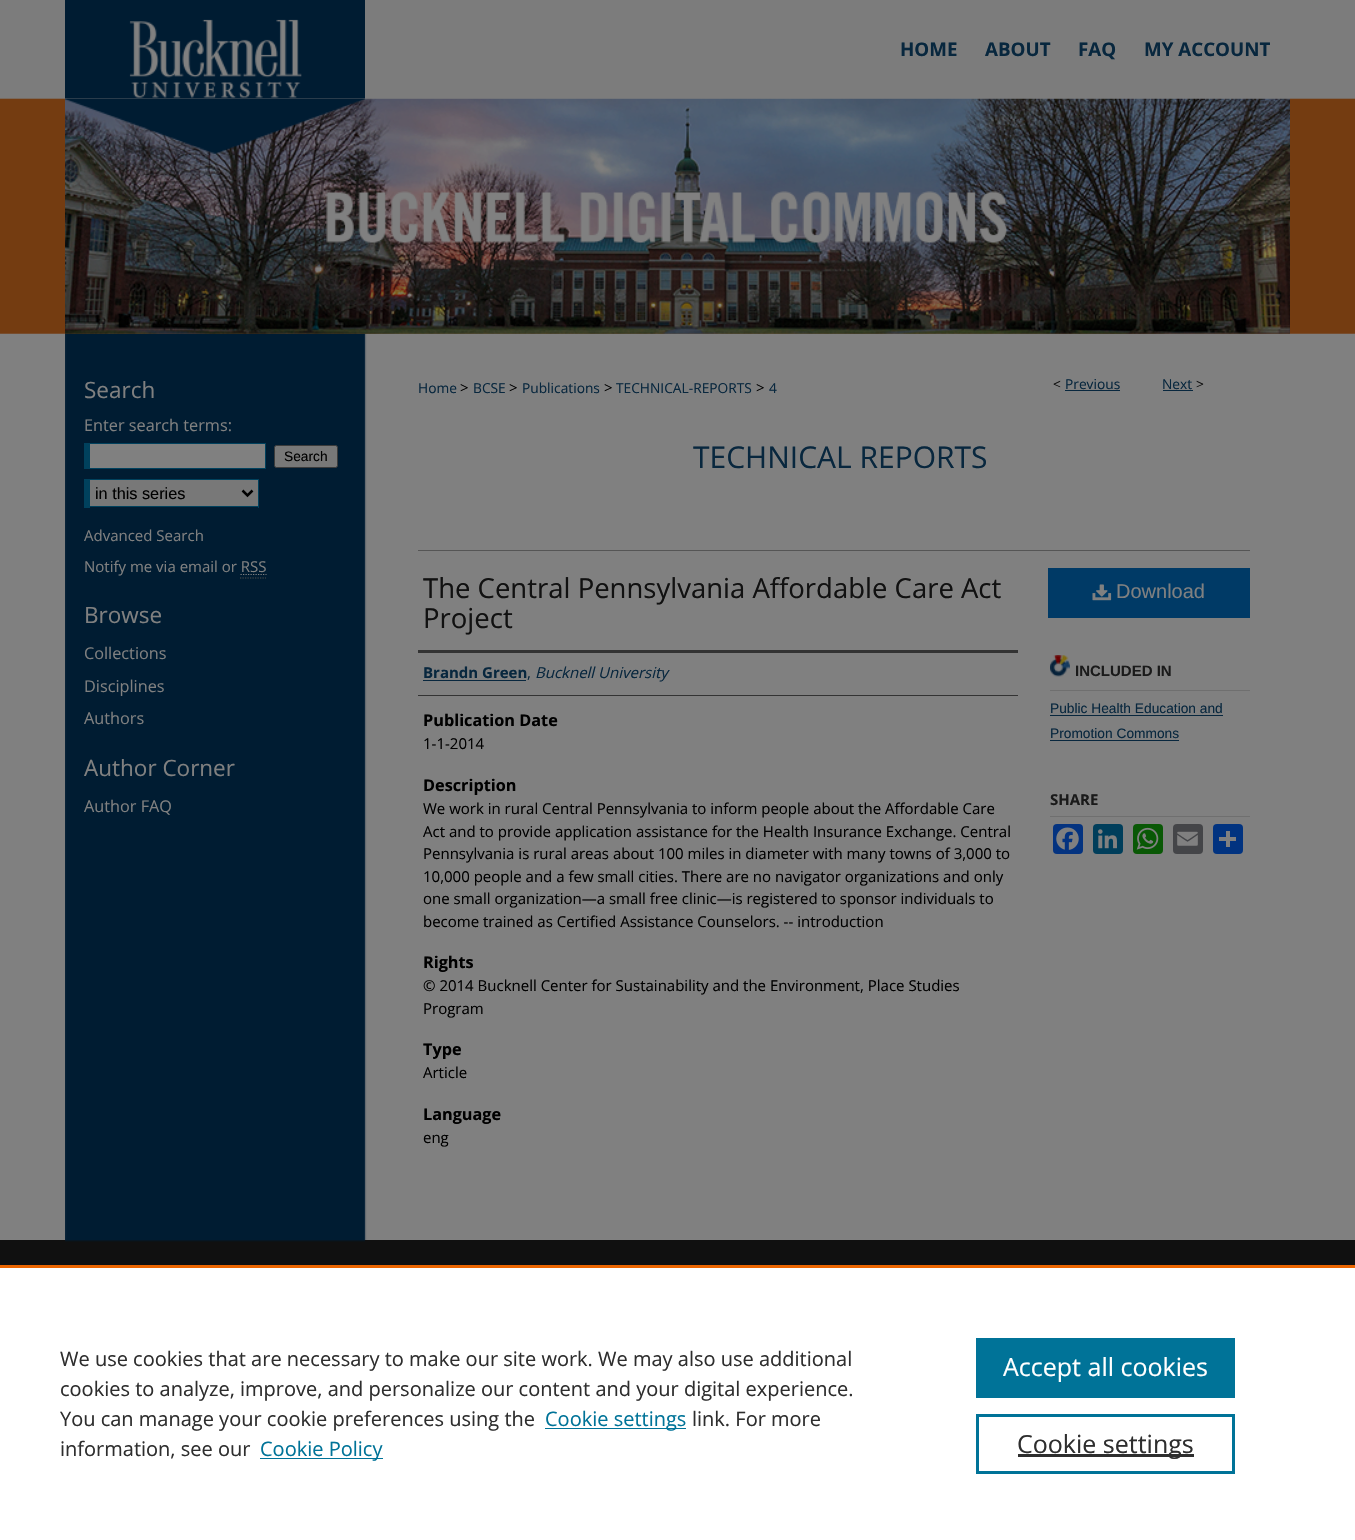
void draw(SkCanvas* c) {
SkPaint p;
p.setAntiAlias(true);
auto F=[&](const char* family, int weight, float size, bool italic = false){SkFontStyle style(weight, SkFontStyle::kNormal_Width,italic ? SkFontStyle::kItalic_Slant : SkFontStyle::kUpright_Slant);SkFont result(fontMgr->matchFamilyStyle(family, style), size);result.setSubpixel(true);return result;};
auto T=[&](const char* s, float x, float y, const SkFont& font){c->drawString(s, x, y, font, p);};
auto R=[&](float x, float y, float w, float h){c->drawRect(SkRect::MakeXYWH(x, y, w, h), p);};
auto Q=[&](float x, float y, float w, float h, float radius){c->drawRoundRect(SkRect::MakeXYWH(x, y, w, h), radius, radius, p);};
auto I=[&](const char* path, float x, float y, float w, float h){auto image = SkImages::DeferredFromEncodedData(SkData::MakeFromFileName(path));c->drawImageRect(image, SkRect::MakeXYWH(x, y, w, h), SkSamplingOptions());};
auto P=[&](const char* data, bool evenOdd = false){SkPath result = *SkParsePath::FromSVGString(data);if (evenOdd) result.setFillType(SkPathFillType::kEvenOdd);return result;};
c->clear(0xff808080);
I("1.png",0,0,1355,334);
p.setColor(0xff101010);
R(0,1240,1355,25);
p.setColor(0xff7d7d7d);
R(65,98,1225,1);
I("2.png",65,0,300,99);
auto f1 = F("Open Sans",700,18.75);
p.setColor(0xff08273e);
T("HOME",900,56,f1);
T("ABOUT",985,56,f1);
T("FAQ",1078,56,f1);
T("MY ACCOUNT",1144,56,f1);
I("4.png",65,333,1225,907);
I("3.png",65,98,1225,236);
auto f2 = F("Open Sans",400,22.5);
p.setColor(0xff808080);
T("Search",84,398,f2);
auto f3 = F("Open Sans",400,16.25);
T("Enter search terms:",84,431,f3);
R(90,444,175,24);
p.setColor(0xff00415d);
R(84,443,182,1);
R(265,443,1,26);
R(84,468,182,1);
R(84,443,6,26);
p.setColor(0xff787878);
c->drawRoundRect(SkRect::MakeXYWH(274.5,445.5,63,22),2,2,p);
p.setStroke(true);
p.setStrokeWidth(1);
p.setColor(0xff3b3b3b);
c->drawRoundRect(SkRect::MakeXYWH(274.5,445.5,63,22),2,2,p);
auto f4 = F("Liberation Sans",400,13.75);
p.setStroke(false);
p.setColor(0xff000000);
T("Search",284,461,f4);
p.setColor(0xff787878);
R(90,480,168,26);
p.setColor(0xff00415d);
R(84,479,175,1);
R(258,479,1,29);
R(84,506,175,1);
R(84,479,6,29);
p.setStroke(true);
p.setStrokeWidth(2.5);
p.setColor(0xff000000);
c->drawPath(P("M242.5 490.5l5 5l5-5"),p);
auto f5 = F("Liberation Sans",400,16.25);
p.setStroke(false);
T("in this series",95,499,f5);
auto f6 = F("Open Sans",400,15);
p.setColor(0xff808080);
T("Advanced Search",84,541,f6);
T("Notify me via email or RSS",84,572,f6);
p.setStroke(true);
p.setStrokeWidth(1.2);
p.setPathEffect(SkDashPathEffect::Make({{1.25f,1.25f}}, 0));
c->drawPath(P("M240.5 574.5h26"),p);
p.setPathEffect(nullptr);
p.setColor(0xff4d4d4d);
p.setPathEffect(SkDashPathEffect::Make({{1.25f,1.25f}}, 0));
c->drawPath(P("M240 578h26"),p);
p.setPathEffect(nullptr);
p.setStroke(false);
p.setColor(0xff808080);
T("Browse",84,623,f2);
T("Collections",84,659,f3);
T("Disciplines",84,692,f3);
T("Authors",84,724,f3);
T("Author Corner",84,776,f2);
T("Author FAQ",84,812,f3);
auto f7 = F("Open Sans",400,13.75);
p.setColor(0xff08273e);
T("Home",418,393,f7);
p.setColor(0xff000000);
T(">",460,393,f6);
p.setColor(0xff08273e);
T("BCSE",473,393,f7);
p.setColor(0xff000000);
T(">",509,393,f6);
p.setColor(0xff08273e);
T("Publications",522,393,f7);
p.setColor(0xff000000);
T(">",604,393,f6);
p.setColor(0xff08273e);
T("TECHNICAL-REPORTS",616,393,f7);
p.setColor(0xff000000);
T(">",756,393,f6);
p.setColor(0xff08273e);
T("4",769,393,f7);
p.setColor(0xff111111);
T("<",1053,389,f7);
p.setColor(0xff08273e);
T("Previous",1065,389,f7);
R(1065,390,55,1);
T("Next",1162,389,f7);
R(1163,390,30,1);
p.setColor(0xff111111);
T(">",1196,389,f7);
auto f8 = F("Open Sans",400,30);
p.setColor(0xff08273e);
T("TECHNICAL REPORTS",693,468,f8);
p.setColor(0xff555555);
R(418,550,832,1);
auto f9 = F("Open Sans",400,27.5);
p.setColor(0xff111111);
T("The Central Pennsylvania Affordable Care Act",423,598,f9);
T("Project",423,628,f9);
p.setColor(0xff333333);
R(418,650,600,3);
R(418,695,600,1);
auto f10 = F("Open Sans",700,15);
p.setColor(0xff08273e);
T("Brandn Green",423,678,f10);
R(423,680,103,1);
T(",",527,678,f6);
auto f11 = F("Open Sans",400,15,true);
T("Bucknell University",535,678,f11);
auto f12 = F("Open Sans",700,16.25);
p.setColor(0xff000000);
T("Publication Date",423,726,f12);
T("1-1-2014",423,749,f6);
T("Description",423,791,f12);
T("We work in rural Central Pennsylvania to inform people about the Affordable Care",423,814,f6);
T("Act and to provide application assistance for the Health Insurance Exchange. Central",423,837,f6);
T("Pennsylvania is rural areas about 100 miles in diameter with many towns of 3,000 to",423,859,f6);
T("10,000 people and a few small cities. There are no navigator organizations and only",423,882,f6);
T("one small organization—a small free clinic—is registered to sponsor individuals to",423,904,f6);
T("become trained as Certified Assistance Counselors. -- introduction",423,927,f6);
T("Rights",423,968,f12);
T("© 2014 Bucknell Center for Sustainability and the Environment, Place Studies",423,991,f6);
T("Program",423,1014,f6);
T("Type",423,1055,f12);
T("Article",423,1078,f6);
T("Language",423,1120,f12);
T("eng",423,1143,f6);
p.setColor(0xff003a66);
R(1048,568,202,50);
I("5.png",1092,584,20,17);
auto f13 = F("Liberation Sans",400,20);
p.setColor(0xff808080);
T("Download",1116,598,f13);
I("6.png",1050,655,20,22);
p.setColor(0xff6f6f6f);
R(1050,690,200,1);
auto f14 = F("Liberation Sans",700,15);
p.setColor(0xff1a1a1a);
T("INCLUDED IN",1075,676,f14);
p.setColor(0xff08273e);
T("Public Health Education and",1050,713,f4);
R(1050,715,173,1);
T("Promotion Commons",1050,738,f4);
R(1050,740,129,1);
p.setColor(0xff6f6f6f);
R(1050,816,200,1);
p.setColor(0xff1a1a1a);
T("SHARE",1050,805,f10);
p.setColor(0xff043380);
Q(1053,824,30,30,4);
I("7.png",1056,827,23,23);
p.setColor(0xff003e5b);
Q(1093,824,30,30,4);
I("8.png",1098,829,19,20);
p.setColor(0xff095805);
Q(1133,824,30,30,4);
I("9.png",1136,827,23,23);
p.setColor(0xff444548);
Q(1173,824,30,30,4);
I("10.png",1177,831,21,15);
p.setColor(0xff013380);
Q(1213,824,30,30,4);
p.setColor(0xff808080);
R(1226,831,4,16);
R(1219,837,17,4);
I("11.png",65,1240,300,25);
p.setColor(0xffffffff);
R(0,1268,1355,272);
p.setColor(0xffeb6500);
R(0,1265,1355,3);
auto f15 = F("Open Sans",400,20);
p.setColor(0xff2e2e2e);
T("We use cookies that are necessary to make our site work. We may also use additional",60,1366,f15);
T("cookies to analyze, improve, and personalize our content and your digital experience.",60,1396,f15);
T("You can manage your cookie preferences using the",60,1426,f15);
p.setColor(0xff007398);
R(545,1428,141,1);
T("Cookie settings",545,1426,f15);
p.setColor(0xff2e2e2e);
T("link. For more",692,1426,f15);
T("information, see our",60,1456,f15);
p.setColor(0xff007398);
R(260,1458,123,1);
T("Cookie Policy",260,1456,f15);
R(976,1338,259,60);
auto f16 = F("Open Sans",400,25);
p.setColor(0xffffffff);
T("Accept all cookies",1003,1376,f16);
p.setStroke(true);
p.setStrokeWidth(3);
p.setColor(0xff007398);
c->drawRect(SkRect::MakeXYWH(977.5,1415.5,256,57),p);
p.setStroke(false);
p.setColor(0xff2e2e2e);
R(1018,1454,176,3);
T("Cookie settings",1017,1453,f16);
}
